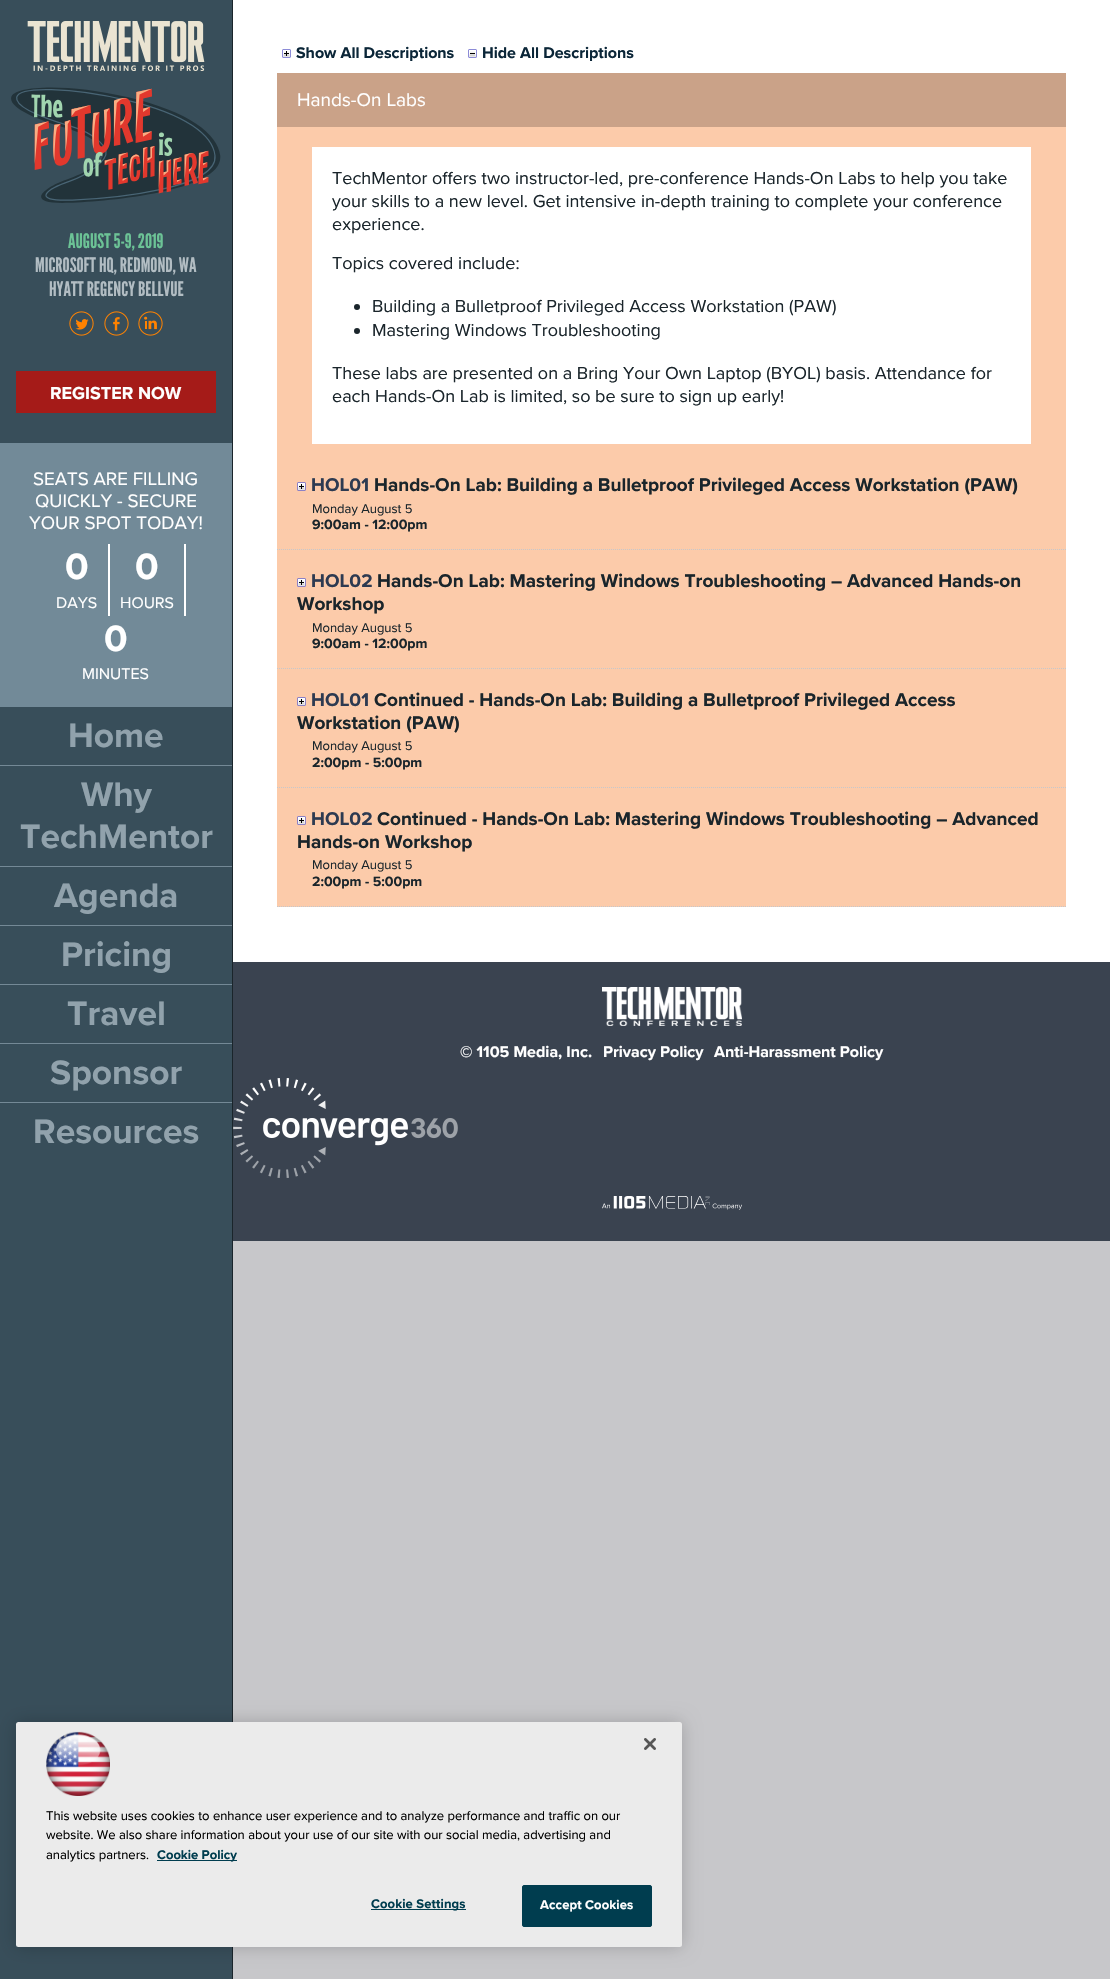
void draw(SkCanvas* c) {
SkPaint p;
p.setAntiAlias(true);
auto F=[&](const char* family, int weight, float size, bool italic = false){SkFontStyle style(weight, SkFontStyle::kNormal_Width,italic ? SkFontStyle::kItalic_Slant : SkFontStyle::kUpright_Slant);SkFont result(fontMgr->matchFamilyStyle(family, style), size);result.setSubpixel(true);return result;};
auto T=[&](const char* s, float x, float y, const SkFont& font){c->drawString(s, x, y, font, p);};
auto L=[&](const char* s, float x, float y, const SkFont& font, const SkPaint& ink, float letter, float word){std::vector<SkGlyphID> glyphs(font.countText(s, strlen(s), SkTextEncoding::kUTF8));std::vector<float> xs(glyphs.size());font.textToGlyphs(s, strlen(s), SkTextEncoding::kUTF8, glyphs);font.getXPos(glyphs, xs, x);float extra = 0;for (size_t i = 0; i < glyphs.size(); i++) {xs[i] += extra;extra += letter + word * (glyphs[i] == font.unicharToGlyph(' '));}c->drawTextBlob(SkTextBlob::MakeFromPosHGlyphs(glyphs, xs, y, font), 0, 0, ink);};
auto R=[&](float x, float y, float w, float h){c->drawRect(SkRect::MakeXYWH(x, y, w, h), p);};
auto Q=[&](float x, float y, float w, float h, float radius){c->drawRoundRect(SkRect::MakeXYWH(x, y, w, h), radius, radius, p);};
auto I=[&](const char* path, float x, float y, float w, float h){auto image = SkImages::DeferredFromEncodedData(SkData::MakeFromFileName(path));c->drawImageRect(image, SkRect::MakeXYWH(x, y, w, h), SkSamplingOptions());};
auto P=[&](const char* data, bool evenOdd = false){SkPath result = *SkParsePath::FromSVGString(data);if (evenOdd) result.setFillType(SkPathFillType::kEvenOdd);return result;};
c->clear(0xffc7c7ca);
p.setColor(0xff384e5a);
R(0,0,232,1979);
p.setColor(0xff1a252b);
R(232,0,1,1979);
I("1.png",27,21,178,50);
I("2.png",11,87,210,116);
auto f1 = F("League Gothic",400,20);
p.setColor(0xff6cc396);
T("AUGUST 5-9, 2019",68,248,f1);
p.setColor(0xffb2bdc3);
T("MICROSOFT HQ, REDMOND, WA",35,272,f1);
T("HYATT REGENCY BELLVUE",49,296,f1);
I("3.png",69,311,25,25);
I("4.png",104,311,25,25);
I("5.png",138,311,25,25);
p.setColor(0xffa51b18);
R(16,371,200,42);
auto f2 = F("Proxima Nova",700,18);
p.setColor(0xffffffff);
T("REGISTER NOW",50,399,f2);
p.setColor(0xff728a98);
R(0,443,232,264);
auto f3 = F("Proxima Nova",400,18.75);
p.setColor(0xffffffff);
T("SEATS ARE FILLING",33,485,f3);
T("QUICKLY - SECURE",35,507,f3);
T("YOUR SPOT TODAY!",29,529,f3);
R(108,544,2,72);
auto f4 = F("Proxima Nova",700,38);
T("0",65,579,f4);
auto f5 = F("Proxima Nova",400,16);
T("DAYS",56,608,f5);
R(184,544,2,72);
T("0",135,579,f4);
T("HOURS",120,608,f5);
T("0",104,651,f4);
T("MINUTES",82,679,f5);
p.setColor(0xff748996);
R(0,765,232,1);
auto f6 = F("Proxima Nova",700,35.25);
p.setColor(0xff91a2ac);
T("Home",68,747,f6);
p.setColor(0xff748996);
R(0,866,232,1);
p.setColor(0xff91a2ac);
T("Why",81,806,f6);
T("TechMentor",20,848,f6);
p.setColor(0xff748996);
R(0,925,232,1);
p.setColor(0xff91a2ac);
T("Agenda",54,907,f6);
p.setColor(0xff748996);
R(0,984,232,1);
p.setColor(0xff91a2ac);
T("Pricing",61,966,f6);
p.setColor(0xff748996);
R(0,1043,232,1);
p.setColor(0xff91a2ac);
T("Travel",67,1025,f6);
p.setColor(0xff748996);
R(0,1102,232,1);
p.setColor(0xff91a2ac);
T("Sponsor",50,1084,f6);
T("Resources",33,1143,f6);
p.setColor(0xffffffff);
R(233,0,877,962);
I("6.png",282,49,9,9);
auto f7 = F("Proxima Nova",700,16);
p.setColor(0xff0b2638);
T("Show All Descriptions",296,58,f7);
I("7.png",468,49,9,9);
T("Hide All Descriptions",482,58,f7);
p.setColor(0xfffccbaa);
R(277,127,789,780);
p.setColor(0xffcaa288);
R(277,73,789,54);
auto f8 = F("Proxima Nova",400,19);
p.setColor(0xffffffff);
T("Hands-On Labs",297,106,f8);
R(312,147,719,297);
auto f9 = F("Proxima Nova",400,18);
p.setColor(0xff1a252b);
T("TechMentor offers two instructor-led, pre-conference Hands-On Labs to help you take",332,184,f9);
T("your skills to a new level. Get intensive in-depth training to complete your conference",332,207,f9);
T("experience.",332,230,f9);
T("Topics covered include:",332,269,f9);
c->drawCircle(357,307,3,p);
T("Building a Bulletproof Privileged Access Workstation (PAW)",372,312,f9);
c->drawCircle(357,331,3,p);
T("Mastering Windows Troubleshooting",372,336,f9);
T("These labs are presented on a Bring Your Own Laptop (BYOL) basis. Attendance for",332,379,f9);
T("each Hands-On Lab is limited, so be sure to sign up early!",332,402,f9);
p.setStroke(true);
p.setStrokeWidth(1);
p.setColor(0xffc7c7ca);
p.setPathEffect(SkDashPathEffect::Make({{1,1}}, 0));
c->drawPath(P("M277 549.5h789"),p);
p.setPathEffect(nullptr);
I("8.png",297,482,9,9);
auto f10 = F("Proxima Nova",700,19);
p.setStroke(false);
p.setColor(0xff2d3a51);
T("HOL01",311,491,f10);
p.setColor(0xff1a252b);
T("Hands-On Lab: Building a Bulletproof Privileged Access Workstation (PAW)",374,491,f10);
auto f11 = F("Proxima Nova",400,13);
T("Monday August 5",312,513,f11);
auto f12 = F("Proxima Nova",700,14);
T("9:00am - 12:00pm",312,529,f12);
p.setStroke(true);
p.setColor(0xffc7c7ca);
p.setPathEffect(SkDashPathEffect::Make({{1,1}}, 0));
c->drawPath(P("M277 668.5h789"),p);
p.setPathEffect(nullptr);
I("8.png",297,578,9,9);
p.setStroke(false);
p.setColor(0xff2d3a51);
T("HOL02",311,587,f10);
p.setColor(0xff1a252b);
T("Hands-On Lab: Mastering Windows Troubleshooting – Advanced Hands-on",377,587,f10);
T("Workshop",297,610,f10);
T("Monday August 5",312,632,f11);
T("9:00am - 12:00pm",312,648,f12);
p.setStroke(true);
p.setColor(0xffc7c7ca);
p.setPathEffect(SkDashPathEffect::Make({{1,1}}, 0));
c->drawPath(P("M277 787.5h789"),p);
p.setPathEffect(nullptr);
I("8.png",297,697,9,9);
p.setStroke(false);
p.setColor(0xff2d3a51);
T("HOL01",311,706,f10);
p.setColor(0xff1a252b);
T("Continued - Hands-On Lab: Building a Bulletproof Privileged Access",374,706,f10);
T("Workstation (PAW)",297,729,f10);
T("Monday August 5",312,750,f11);
T("2:00pm - 5:00pm",312,767,f12);
p.setStroke(true);
p.setColor(0xffc7c7ca);
p.setPathEffect(SkDashPathEffect::Make({{1,1}}, 0));
c->drawPath(P("M277 906.5h789"),p);
p.setPathEffect(nullptr);
I("8.png",297,816,9,9);
p.setStroke(false);
p.setColor(0xff2d3a51);
T("HOL02",311,825,f10);
p.setColor(0xff1a252b);
T("Continued - Hands-On Lab: Mastering Windows Troubleshooting – Advanced",377,825,f10);
T("Hands-on Workshop",297,848,f10);
T("Monday August 5",312,869,f11);
T("2:00pm - 5:00pm",312,886,f12);
p.setColor(0xff3a4350);
R(233,962,877,279);
I("9.png",602,987,140,39);
p.setColor(0xffffffff);
T("© 1105 Media, Inc.",460,1057,f7);
T("Privacy Policy",603,1057,f7);
T("Anti-Harassment Policy",714,1057,f7);
I("10.png",233,1078,225,100);
I("11.png",602,1196,140,14);
p.setColor(0x33000000);
p.setMaskFilter(SkMaskFilter::MakeBlur(kNormal_SkBlurStyle, 9));
c->drawRoundRect(SkRect::MakeXYWH(16,1722,666,225),2.5,2.5,p);
p.setMaskFilter(nullptr);
p.setColor(0xffebebeb);
Q(16,1722,666,225,2.5);
I("12.png",644,1738,12,12);
I("13.png",46,1731,64,65);
p.setColor(0xff000000);
T("This website uses cookies to enhance user experience and to analyze performance and traffic on our",46,1820,f11);
T("website. We also share information about your use of our site with our social media, advertising and",46,1839,f11);
T("analytics partners.",46,1859,f11);
p.setColor(0xff003d4f);
R(157,1860,80,1);
auto f13 = F("Proxima Nova",700,13);
T("Cookie Policy",157,1859,f13);
R(371,1909,95,1);
L("Cookie Settings",371,1908,f13,p,.1,0);
c->drawRoundRect(SkRect::MakeXYWH(522.5,1885.5,129,41),1.5,1.5,p);
p.setStroke(true);
c->drawRoundRect(SkRect::MakeXYWH(522.5,1885.5,129,41),1.5,1.5,p);
p.setStroke(false);
p.setColor(0xffffffff);
L("Accept Cookies",540,1909,f13,p,.1,0);
}
